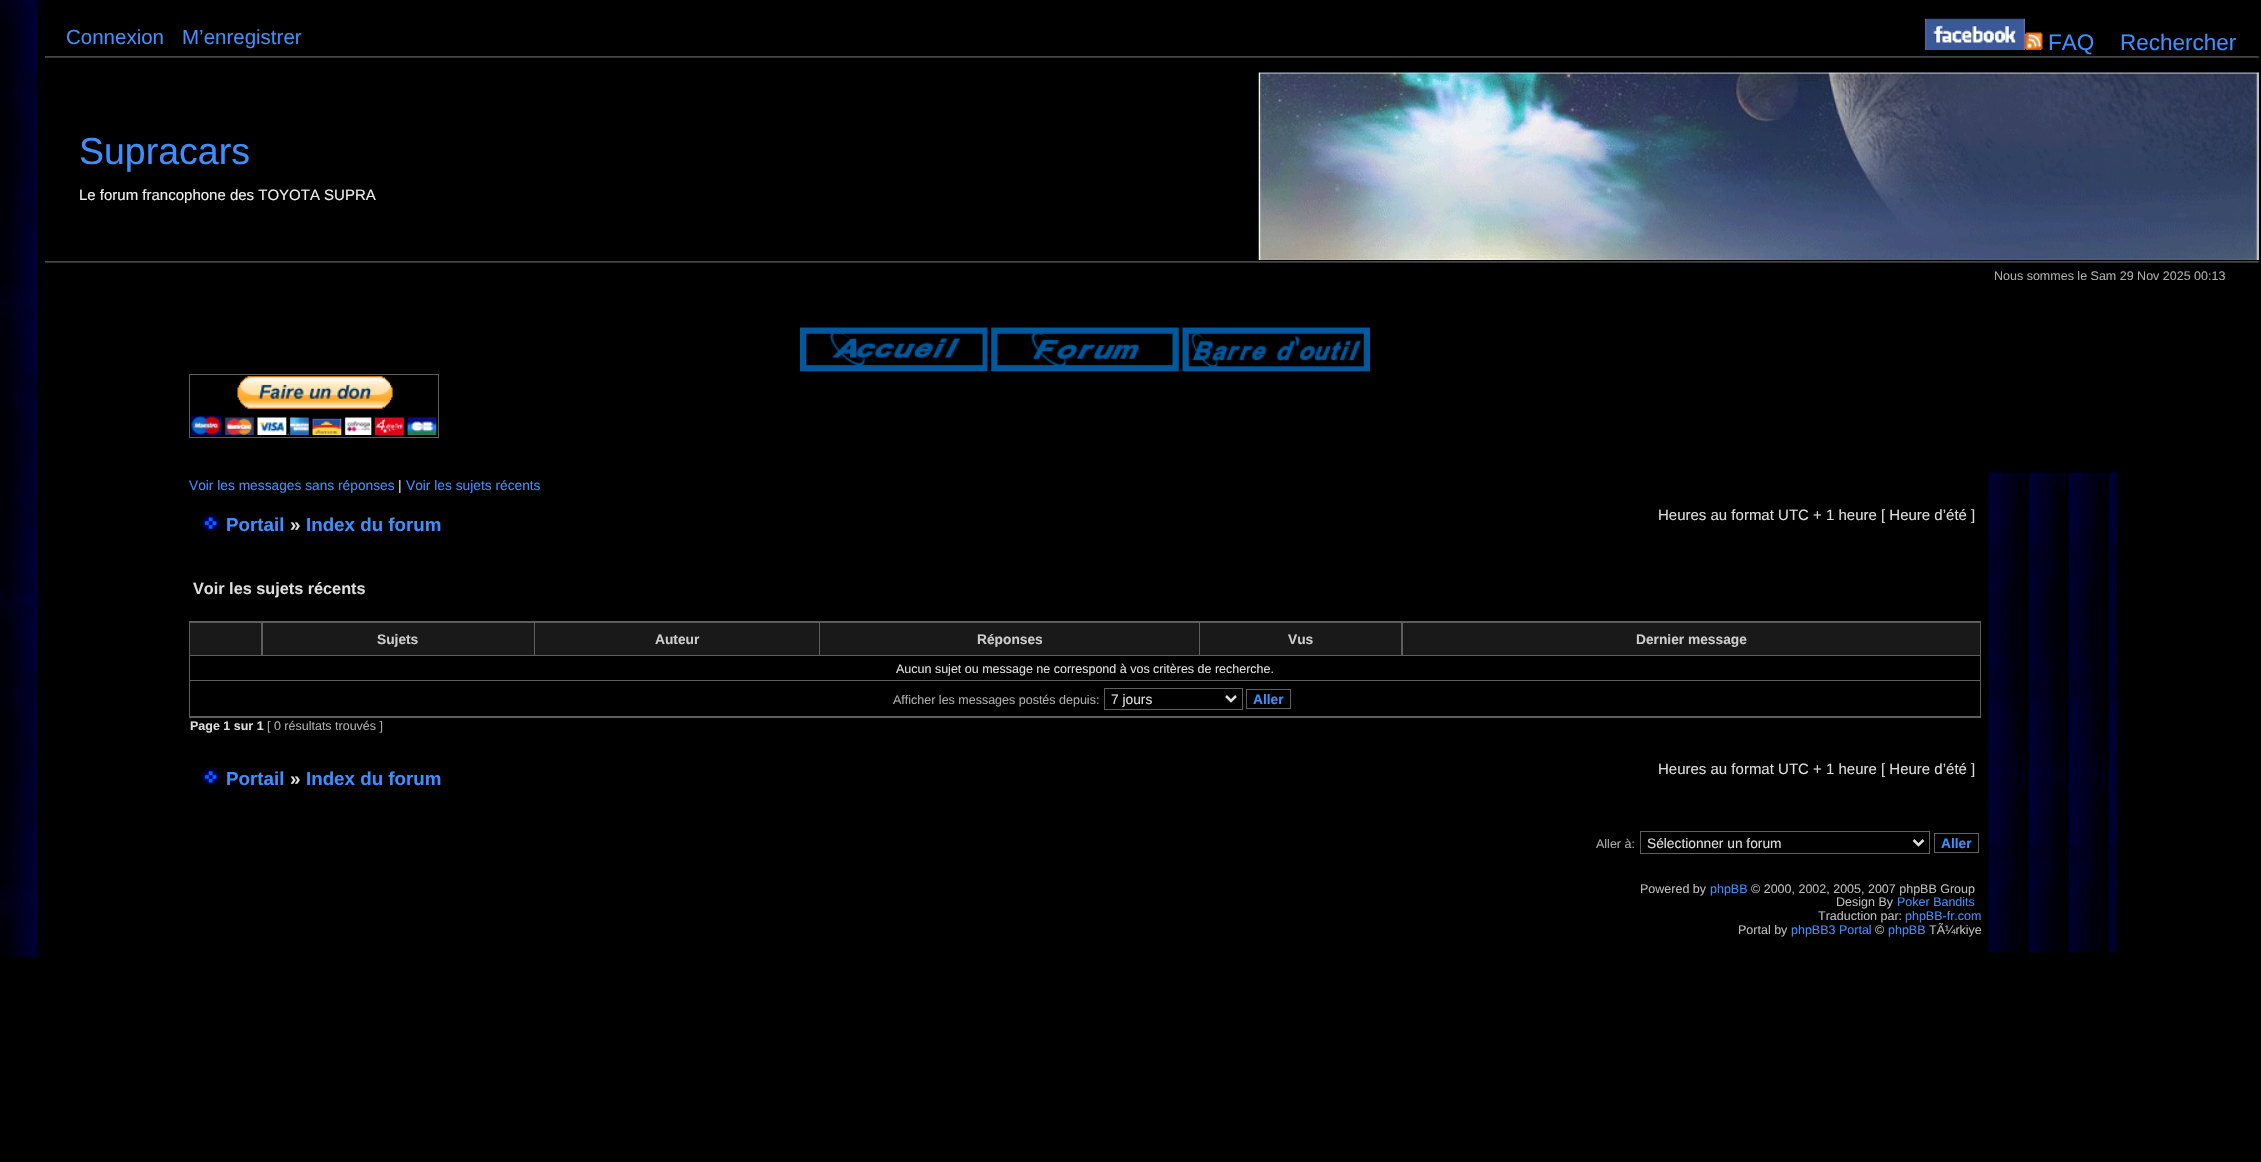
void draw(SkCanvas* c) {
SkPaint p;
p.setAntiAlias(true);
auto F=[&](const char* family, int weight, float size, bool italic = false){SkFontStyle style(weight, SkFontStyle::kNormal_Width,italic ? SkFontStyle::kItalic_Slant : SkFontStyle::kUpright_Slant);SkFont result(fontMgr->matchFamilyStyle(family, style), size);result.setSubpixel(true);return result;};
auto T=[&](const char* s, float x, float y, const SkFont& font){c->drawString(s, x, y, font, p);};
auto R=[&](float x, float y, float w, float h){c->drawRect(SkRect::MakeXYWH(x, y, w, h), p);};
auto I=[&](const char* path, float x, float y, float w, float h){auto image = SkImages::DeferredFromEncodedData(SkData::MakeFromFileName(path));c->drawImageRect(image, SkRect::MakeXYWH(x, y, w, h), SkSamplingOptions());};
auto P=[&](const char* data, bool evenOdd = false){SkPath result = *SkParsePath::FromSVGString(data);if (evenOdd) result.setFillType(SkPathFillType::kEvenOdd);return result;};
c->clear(0xff000000);
I("1.png",0,0,43,958);
I("2.png",45,56,2214,2);
auto f1 = F("Liberation Sans",400,20.5);
p.setColor(0xff3e8ffd);
T("Connexion",66,44,f1);
T("M’enregistrer",182,44,f1);
I("3.png",1925,18,100,32);
I("4.png",2025,32,18,18);
auto f2 = F("Liberation Sans",400,22.5);
T("FAQ",2048,50,f2);
T("Rechercher",2120,50,f2);
I("5.png",1258,72,1001,188);
auto f3 = F("Liberation Sans",400,37.5);
T("Supracars",79,164,f3);
auto f4 = F("Liberation Sans",400,15);
p.setColor(0xffeeeeee);
T("Le forum francophone des TOYOTA SUPRA",79,200,f4);
I("2.png",45,261,2214,2);
auto f5 = F("Liberation Sans",400,12.5);
p.setColor(0xffababab);
T("Nous sommes le Sam 29 Nov 2025 00:13",1994,280,f5);
I("6.png",800,327,188,45);
I("7.png",991,327,188,45);
I("8.png",1182,327,188,45);
p.setStroke(true);
p.setStrokeWidth(1);
p.setColor(0xff5e5e5e);
c->drawRect(SkRect::MakeXYWH(189.5,374.5,249,63),p);
I("9.png",191,376,246,59);
auto f6 = F("Liberation Sans",400,13.75);
p.setStroke(false);
p.setColor(0xff3e8ffd);
T("Voir les messages sans réponses",189,490,f6);
p.setColor(0xffdddddd);
T("|",398,490,f6);
p.setColor(0xff3e8ffd);
T("Voir les sujets récents",406,490,f6);
I("10.png",201,512,21,20);
auto f7 = F("Liberation Sans",700,18.75);
T("Portail",226,531,f7);
p.setColor(0xffdddddd);
T("»",290,531,f7);
p.setColor(0xff3e8ffd);
T("Index du forum",306,531,f7);
p.setColor(0xffdddddd);
T("Heures au format UTC + 1 heure [ Heure d’été ]",1658,520,f4);
auto f8 = F("Liberation Sans",700,16.25);
T("Voir les sujets récents",193,594,f8);
p.setColor(0xff5e5e5e);
R(189,621,1792,97);
p.setColor(0xff191919);
R(190,623,71,32);
R(263,623,271,32);
auto f9 = F("Liberation Sans",700,13.75);
p.setColor(0xffcccccc);
T("Sujets",377,644,f9);
p.setColor(0xff191919);
R(535,623,284,32);
p.setColor(0xffcccccc);
T("Auteur",655,644,f9);
p.setColor(0xff191919);
R(820,623,379,32);
p.setColor(0xffcccccc);
T("Réponses",977,644,f9);
p.setColor(0xff191919);
R(1200,623,201,32);
p.setColor(0xffcccccc);
T("Vus",1288,644,f9);
p.setColor(0xff191919);
R(1403,623,577,32);
p.setColor(0xffcccccc);
T("Dernier message",1636,644,f9);
p.setColor(0xff000000);
R(190,656,1790,24);
p.setColor(0xffdddddd);
T("Aucun sujet ou message ne correspond à vos critères de recherche.",896,673,f5);
p.setColor(0xff000000);
R(190,681,1790,35);
p.setColor(0xffababab);
T("Afficher les messages postés depuis:",893,704,f5);
p.setStroke(true);
p.setColor(0xff5e5e5e);
c->drawRect(SkRect::MakeXYWH(1104.5,688.5,138,21),p);
p.setStrokeWidth(2.5);
p.setColor(0xffdddddd);
c->drawPath(P("M1226 696l5 5l5-5"),p);
p.setStroke(false);
T("7 jours",1111,704,f6);
p.setStroke(true);
p.setStrokeWidth(1);
p.setColor(0xff5e5e5e);
c->drawRect(SkRect::MakeXYWH(1246.5,689.5,44,19),p);
p.setStroke(false);
p.setColor(0xff3e8ffd);
T("Aller",1253,704,f9);
auto f10 = F("Liberation Sans",700,12.5);
p.setColor(0xffdddddd);
T("Page 1 sur 1",190,730,f10);
p.setColor(0xffababab);
T("[ 0 résultats trouvés ]",267,730,f5);
I("11.png",201,766,21,19);
p.setColor(0xff3e8ffd);
T("Portail",226,785,f7);
p.setColor(0xffdddddd);
T("»",290,785,f7);
p.setColor(0xff3e8ffd);
T("Index du forum",306,785,f7);
p.setColor(0xffdddddd);
T("Heures au format UTC + 1 heure [ Heure d’été ]",1658,774,f4);
p.setColor(0xffababab);
T("Aller à:",1596,848,f5);
p.setStroke(true);
p.setColor(0xff5e5e5e);
c->drawRect(SkRect::MakeXYWH(1640.5,831.5,289,22),p);
p.setStrokeWidth(2.5);
p.setColor(0xffdddddd);
c->drawPath(P("M1913.5 840l5 5l5-5"),p);
p.setStroke(false);
T("Sélectionner un forum",1647,848,f6);
p.setStroke(true);
p.setStrokeWidth(1);
p.setColor(0xff5e5e5e);
c->drawRect(SkRect::MakeXYWH(1934.5,833.5,44,19),p);
p.setStroke(false);
p.setColor(0xff3e8ffd);
T("Aller",1941,848,f9);
p.setColor(0xffbbbbbb);
T("Powered by",1640,893,f5);
p.setColor(0xff3e8ffd);
T("phpBB",1710,893,f5);
p.setColor(0xffbbbbbb);
T("© 2000, 2002, 2005, 2007 phpBB Group",1751,893,f5);
T("Design By",1836,906,f5);
p.setColor(0xff3e8ffd);
T("Poker Bandits",1897,906,f5);
p.setColor(0xffbbbbbb);
T("Traduction par:",1818,920,f5);
p.setColor(0xff3e8ffd);
T("phpBB-fr.com",1905,920,f5);
p.setColor(0xffbbbbbb);
T("Portal by",1738,934,f5);
p.setColor(0xff3e8ffd);
T("phpBB3 Portal",1791,934,f5);
p.setColor(0xffbbbbbb);
T("©",1875,934,f5);
p.setColor(0xff3e8ffd);
T("phpBB",1888,934,f5);
p.setColor(0xffbbbbbb);
T("TÃ¼rkiye",1929,934,f5);
I("12.png",1986,472,132,481);
}
